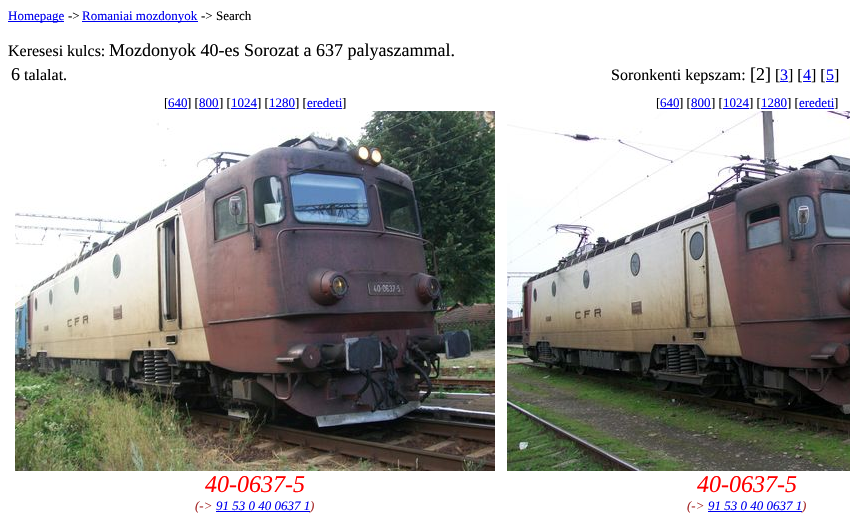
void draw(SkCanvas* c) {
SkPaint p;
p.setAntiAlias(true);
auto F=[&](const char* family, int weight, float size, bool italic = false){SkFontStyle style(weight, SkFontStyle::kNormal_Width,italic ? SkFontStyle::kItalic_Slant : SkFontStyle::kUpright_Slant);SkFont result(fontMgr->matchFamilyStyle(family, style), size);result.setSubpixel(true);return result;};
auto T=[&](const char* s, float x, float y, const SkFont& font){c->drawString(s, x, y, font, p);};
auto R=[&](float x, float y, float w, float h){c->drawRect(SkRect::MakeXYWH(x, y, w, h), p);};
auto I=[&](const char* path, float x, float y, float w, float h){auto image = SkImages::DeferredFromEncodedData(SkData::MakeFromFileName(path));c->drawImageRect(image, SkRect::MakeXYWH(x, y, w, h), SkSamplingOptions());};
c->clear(0xffffffff);
p.setColor(0xff0000ee);
R(8,21,56,1);
auto f1 = F("Liberation Serif",400,13);
T("Homepage",8,20,f1);
p.setColor(0xff000000);
T("->",68,20,f1);
p.setColor(0xff0000ee);
R(82,21,116,1);
T("Romaniai mozdonyok",82,20,f1);
p.setColor(0xff000000);
T("-> Search",201,20,f1);
auto f2 = F("Liberation Serif",400,16);
T("Keresesi kulcs:",8,56,f2);
auto f3 = F("Liberation Serif",400,18);
T("Mozdonyok 40-es Sorozat a 637 palyaszammal.",109,56,f3);
T("6",11,80,f3);
T("talalat.",24,80,f2);
T("Soronkenti kepszam:",611,80,f2);
T("[2]",750,80,f3);
T("[",775,80,f2);
p.setColor(0xff0000ee);
T("3",780,80,f2);
R(780,81,8,1);
p.setColor(0xff000000);
T("] [",788,80,f2);
p.setColor(0xff0000ee);
T("4",803,80,f2);
R(803,81,8,1);
p.setColor(0xff000000);
T("] [",811,80,f2);
p.setColor(0xff0000ee);
T("5",826,80,f2);
R(826,81,8,1);
p.setColor(0xff000000);
T("]",834,80,f2);
T("[",164,107,f1);
p.setColor(0xff0000ee);
R(168,108,19,1);
T("640",168,107,f1);
p.setColor(0xff000000);
T("] [",187,107,f1);
p.setColor(0xff0000ee);
R(199,108,20,1);
T("800",199,107,f1);
p.setColor(0xff000000);
T("] [",219,107,f1);
p.setColor(0xff0000ee);
R(231,108,26,1);
T("1024",231,107,f1);
p.setColor(0xff000000);
T("] [",257,107,f1);
p.setColor(0xff0000ee);
R(269,108,26,1);
T("1280",269,107,f1);
p.setColor(0xff000000);
T("] [",295,107,f1);
p.setColor(0xff0000ee);
R(307,108,35,1);
T("eredeti",307,107,f1);
p.setColor(0xff000000);
T("]",342,107,f1);
I("1.png",15,111,480,360);
auto f4 = F("Liberation Serif",400,24,true);
p.setColor(0xffff0000);
T("40-0637-5",205,492,f4);
auto f5 = F("Liberation Serif",400,13,true);
p.setColor(0xffa52a2a);
T("(->",195,510,f5);
p.setColor(0xff0000ee);
T("91 53 0 40 0637 1",216,510,f5);
R(216,511,94,1);
p.setColor(0xffa52a2a);
T(")",310,510,f5);
p.setColor(0xff000000);
T("[",656,107,f1);
p.setColor(0xff0000ee);
R(660,108,19,1);
T("640",660,107,f1);
p.setColor(0xff000000);
T("] [",679,107,f1);
p.setColor(0xff0000ee);
R(691,108,20,1);
T("800",691,107,f1);
p.setColor(0xff000000);
T("] [",711,107,f1);
p.setColor(0xff0000ee);
R(723,108,26,1);
T("1024",723,107,f1);
p.setColor(0xff000000);
T("] [",749,107,f1);
p.setColor(0xff0000ee);
R(761,108,26,1);
T("1280",761,107,f1);
p.setColor(0xff000000);
T("] [",787,107,f1);
p.setColor(0xff0000ee);
R(799,108,35,1);
T("eredeti",799,107,f1);
p.setColor(0xff000000);
T("]",834,107,f1);
I("2.png",507,111,343,360);
p.setColor(0xffff0000);
T("40-0637-5",697,492,f4);
p.setColor(0xffa52a2a);
T("(->",687,510,f5);
p.setColor(0xff0000ee);
T("91 53 0 40 0637 1",708,510,f5);
R(708,511,94,1);
p.setColor(0xffa52a2a);
T(")",802,510,f5);
}
